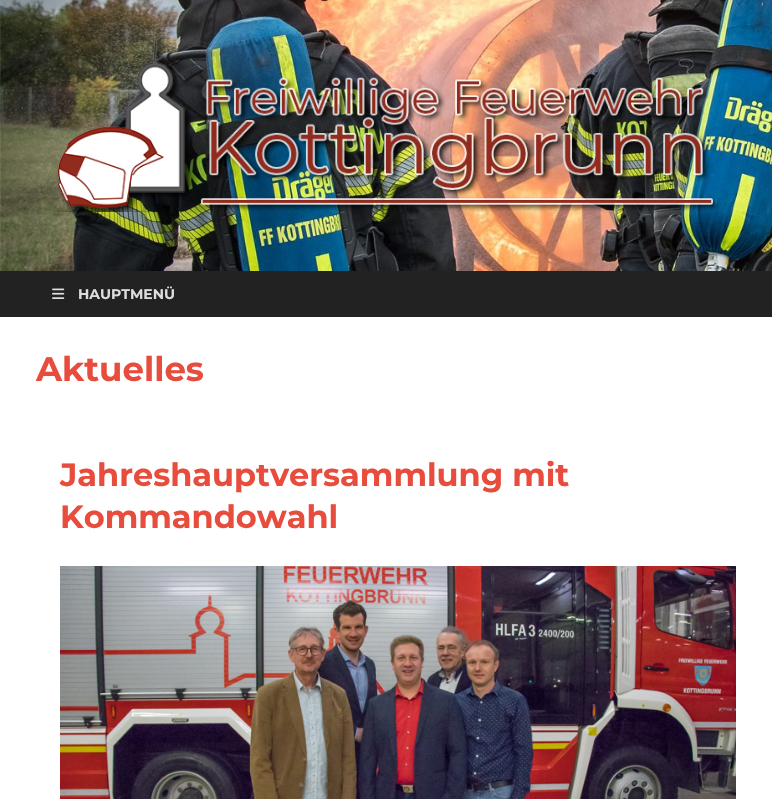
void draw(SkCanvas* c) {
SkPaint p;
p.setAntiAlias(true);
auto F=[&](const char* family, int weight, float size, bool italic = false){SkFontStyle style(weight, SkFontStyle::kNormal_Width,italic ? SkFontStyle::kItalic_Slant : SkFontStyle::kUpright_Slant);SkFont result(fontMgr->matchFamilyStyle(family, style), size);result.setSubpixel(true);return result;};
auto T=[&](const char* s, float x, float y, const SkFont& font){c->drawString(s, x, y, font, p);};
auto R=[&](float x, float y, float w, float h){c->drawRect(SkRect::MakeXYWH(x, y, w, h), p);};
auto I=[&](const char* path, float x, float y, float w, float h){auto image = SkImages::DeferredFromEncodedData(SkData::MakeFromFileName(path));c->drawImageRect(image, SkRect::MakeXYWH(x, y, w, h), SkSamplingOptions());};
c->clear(0xffffffff);
I("1.png",0,0,772,271);
I("2.png",54,28,666,184);
p.setColor(0xff222222);
R(0,271,772,46);
I("3.png",52,288,13,11);
auto f1 = F("Montserrat",700,14);
p.setColor(0xffdddddd);
T("HAUPTMENÜ",78,299,f1);
auto f2 = F("Montserrat",700,34);
p.setColor(0xffe74c3c);
T("Aktuelles",36,381,f2);
auto f3 = F("Montserrat",700,32);
T("Jahreshauptversammlung mit",60,486,f3);
T("Kommandowahl",60,528,f3);
I("4.png",60,566,676,233);
}
